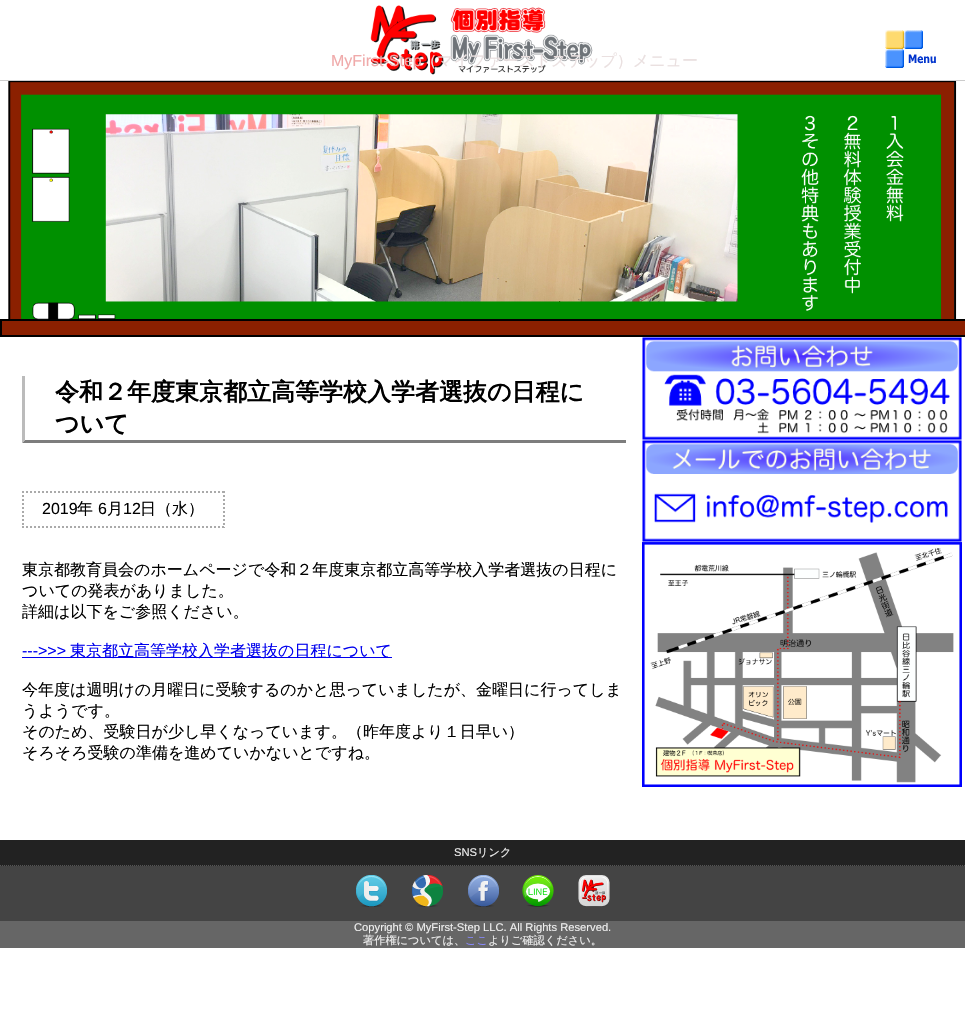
void draw(SkCanvas* c) {
SkPaint p;
p.setAntiAlias(true);
auto F=[&](const char* family, int weight, float size, bool italic = false){SkFontStyle style(weight, SkFontStyle::kNormal_Width,italic ? SkFontStyle::kItalic_Slant : SkFontStyle::kUpright_Slant);SkFont result(fontMgr->matchFamilyStyle(family, style), size);result.setSubpixel(true);return result;};
auto T=[&](const char* s, float x, float y, const SkFont& font){c->drawString(s, x, y, font, p);};
auto R=[&](float x, float y, float w, float h){c->drawRect(SkRect::MakeXYWH(x, y, w, h), p);};
auto I=[&](const char* path, float x, float y, float w, float h){auto image = SkImages::DeferredFromEncodedData(SkData::MakeFromFileName(path));c->drawImageRect(image, SkRect::MakeXYWH(x, y, w, h), SkSamplingOptions());};
auto P=[&](const char* data, bool evenOdd = false){SkPath result = *SkParsePath::FromSVGString(data);if (evenOdd) result.setFillType(SkPathFillType::kEvenOdd);return result;};
c->clear(0xffffffff);
p.setColor(0xffcccccc);
R(0,80,965,1);
I("1.png",370,5,223,70);
I("2.png",885,30,51,38);
auto f1 = F("Liberation Sans",400,16);
p.setColor(0xfff0aaaa);
T("MyFirst-Step",331,66,f1);
auto f2 = F("WenQuanYi Zen Hei",500,16);
p.setColor(0xffeae0e0);
T("（マイファーストステップ）メニュー",421,66,f2);
I("3.png",0,81,965,256);
p.setColor(0xff7d7d7d);
c->drawPath(P("M626 443h-604l3-3h601z"),p);
p.setColor(0xffbbbbbb);
c->drawPath(P("M22 443v-67h3v64z"),p);
auto f3 = F("WenQuanYi Zen Hei",700,24);
p.setColor(0xff000000);
T("令和２年度東京都立高等学校入学者選抜の日程に",55,400,f3);
T("ついて",55,432,f3);
p.setStroke(true);
p.setStrokeWidth(2);
p.setColor(0xffaaaaaa);
p.setPathEffect(SkDashPathEffect::Make({{2,2}}, 0));
c->drawPath(P("M22 492h203"),p);
p.setPathEffect(nullptr);
p.setPathEffect(SkDashPathEffect::Make({{2,2}}, 0));
c->drawPath(P("M224 491v37"),p);
p.setPathEffect(nullptr);
p.setPathEffect(SkDashPathEffect::Make({{2,2}}, 0));
c->drawPath(P("M22 527h203"),p);
p.setPathEffect(nullptr);
p.setPathEffect(SkDashPathEffect::Make({{2,2}}, 0));
c->drawPath(P("M23 491v37"),p);
p.setPathEffect(nullptr);
p.setStroke(false);
p.setColor(0xff000000);
T("2019",42,514,f1);
T("年",77,514,f2);
T("6",98,514,f1);
T("月",107,514,f2);
T("12",123,514,f1);
T("日（水）",140,514,f2);
T("東京都教育員会のホームページで令和２年度東京都立高等学校入学者選抜の日程に",22,575,f2);
T("ついての発表がありました。",22,596,f2);
T("詳細は以下をご参照ください。",22,617,f2);
p.setColor(0xff0000ee);
T("--->>>",22,656,f1);
R(22,657,370,1);
T("東京都立高等学校入学者選抜の日程について",70,656,f2);
p.setColor(0xff000000);
T("今年度は週明けの月曜日に受験するのかと思っていましたが、金曜日に行ってしま",22,695,f2);
T("うようです。",22,716,f2);
T("そのため、受験日が少し早くなっています。（昨年度より１日早い）",22,737,f2);
T("そろそろ受験の準備を進めていかないとですね。",22,758,f2);
I("4.png",642,337,320,103);
I("5.png",642,440,320,102);
I("6.png",642,542,320,245);
p.setColor(0xff444444);
R(0,866,965,55);
p.setColor(0xff222222);
R(0,840,965,26);
p.setStroke(true);
p.setStrokeWidth(1);
p.setColor(0xff555555);
p.setPathEffect(SkDashPathEffect::Make({{1,1}}, 0));
c->drawPath(P("M0 865.5h965"),p);
p.setPathEffect(nullptr);
auto f4 = F("Liberation Sans",400,11.2);
p.setStroke(false);
p.setColor(0xffeeeeee);
T("SNS",454,856,f4);
auto f5 = F("WenQuanYi Zen Hei",500,11.2);
T("リンク",477,856,f5);
I("7.png",356,875,31,32);
I("8.png",412,875,31,32);
I("9.png",468,875,31,32);
I("10.png",522,875,32,32);
I("11.png",578,875,32,32);
p.setColor(0xff666666);
R(0,921,965,27);
p.setColor(0xffeeeeee);
T("Copyright © MyFirst-Step LLC. All Rights Reserved.",354,931,f4);
T("著作権については、",363,944,f5);
p.setColor(0xff8888ff);
T("ここ",465,944,f5);
p.setColor(0xffeeeeee);
T("よりご確認ください。",488,944,f5);
}
